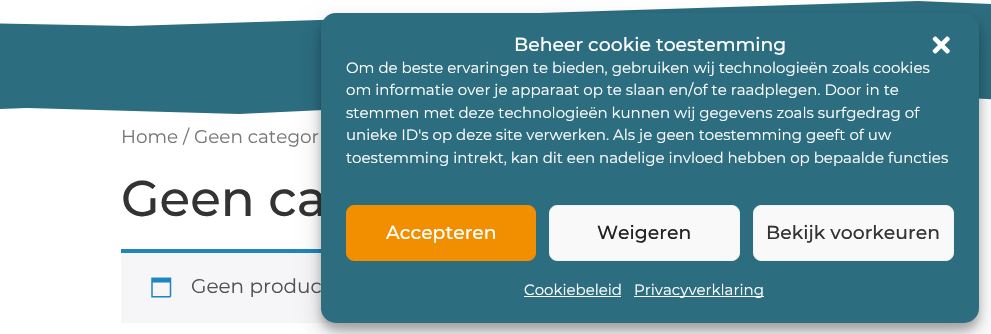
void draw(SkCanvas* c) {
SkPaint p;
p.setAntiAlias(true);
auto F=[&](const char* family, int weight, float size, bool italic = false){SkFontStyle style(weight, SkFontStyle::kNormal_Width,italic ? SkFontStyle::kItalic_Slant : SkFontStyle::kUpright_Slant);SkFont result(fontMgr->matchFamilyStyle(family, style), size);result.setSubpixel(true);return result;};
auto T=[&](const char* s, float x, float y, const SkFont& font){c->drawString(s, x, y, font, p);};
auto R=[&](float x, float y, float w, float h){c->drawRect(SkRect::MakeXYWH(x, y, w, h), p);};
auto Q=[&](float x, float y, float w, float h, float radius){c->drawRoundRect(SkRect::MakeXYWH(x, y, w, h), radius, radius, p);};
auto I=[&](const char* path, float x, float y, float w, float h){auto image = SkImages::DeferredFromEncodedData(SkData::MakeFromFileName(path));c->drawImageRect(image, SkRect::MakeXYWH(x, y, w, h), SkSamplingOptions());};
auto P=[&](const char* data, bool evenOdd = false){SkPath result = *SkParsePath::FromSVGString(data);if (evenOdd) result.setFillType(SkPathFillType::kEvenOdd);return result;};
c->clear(0xffffffff);
p.setColor(0xff2c6d7f);
R(0,1,991,113);
p.setColor(0xffffffff);
c->drawPath(P("M-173 20l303 6l788-25l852 34v-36h-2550v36"),p);
c->drawPath(P("M27 108l212 6l553-26l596 34v2h-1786v-2"),p);
auto f1 = F("Montserrat",400,18.4);
p.setColor(0xff767676);
T("Home / Geen categor",121,143,f1);
auto f2 = F("Montserrat",500,50);
p.setColor(0xff333333);
T("Geen ca",121,216,f2);
p.setColor(0xfff6f5f8);
R(121,253,215,70);
p.setColor(0xff1e85be);
R(121,249,200,4);
I("1.png",151,277,21,21);
auto f3 = F("Montserrat",400,20);
p.setColor(0xff515151);
T("Geen produc",191,293,f3);
p.setColor(0x3b000000);
p.setMaskFilter(SkMaskFilter::MakeBlur(kNormal_SkBlurStyle, 4));
c->drawRoundRect(SkRect::MakeXYWH(321,20,658,310),15,15,p);
p.setMaskFilter(nullptr);
p.setColor(0x30000000);
p.setMaskFilter(SkMaskFilter::MakeBlur(kNormal_SkBlurStyle, 12.5));
c->drawRoundRect(SkRect::MakeXYWH(321,25,658,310),15,15,p);
p.setMaskFilter(nullptr);
p.setColor(0xff2c6d7f);
Q(321,13,658,310,15);
auto f4 = F("Montserrat",500,18.75);
p.setColor(0xffffffff);
T("Beheer cookie toestemming",514,51,f4);
I("2.png",932,36,18,18);
auto f5 = F("Montserrat",400,15);
T("Om de beste ervaringen te bieden, gebruiken wij technologieën zoals cookies",346,73,f5);
T("om informatie over je apparaat op te slaan en/of te raadplegen. Door in te",346,95,f5);
T("stemmen met deze technologieën kunnen wij gegevens zoals surfgedrag of",346,118,f5);
T("unieke ID's op deze site verwerken. Als je geen toestemming geeft of uw",346,140,f5);
T("toestemming intrekt, kan dit een nadelige invloed hebben op bepaalde functies",346,163,f5);
p.setColor(0xfff18f00);
c->drawRoundRect(SkRect::MakeXYWH(346.5,205.5,189,55),7.5,7.5,p);
p.setStroke(true);
p.setStrokeWidth(1);
c->drawRoundRect(SkRect::MakeXYWH(346.5,205.5,189,55),7.5,7.5,p);
p.setStroke(false);
p.setColor(0xffffffff);
T("Accepteren",386,239,f4);
p.setColor(0xfff9f9f9);
c->drawRoundRect(SkRect::MakeXYWH(549.5,205.5,190,55),7.5,7.5,p);
p.setStroke(true);
p.setColor(0xfff2f2f2);
c->drawRoundRect(SkRect::MakeXYWH(549.5,205.5,190,55),7.5,7.5,p);
p.setStroke(false);
p.setColor(0xff222222);
T("Weigeren",597,239,f4);
p.setColor(0xfff9f9f9);
c->drawRoundRect(SkRect::MakeXYWH(753.5,205.5,200,55),7.5,7.5,p);
p.setStroke(true);
p.setColor(0xfff2f2f2);
c->drawRoundRect(SkRect::MakeXYWH(753.5,205.5,200,55),7.5,7.5,p);
p.setStroke(false);
p.setColor(0xff333333);
T("Bekijk voorkeuren",766,239,f4);
p.setColor(0xffffffff);
T("Cookiebeleid",524,295,f5);
R(524,296,97,1);
R(634,296,130,1);
T("Privacyverklaring",634,295,f5);
}
